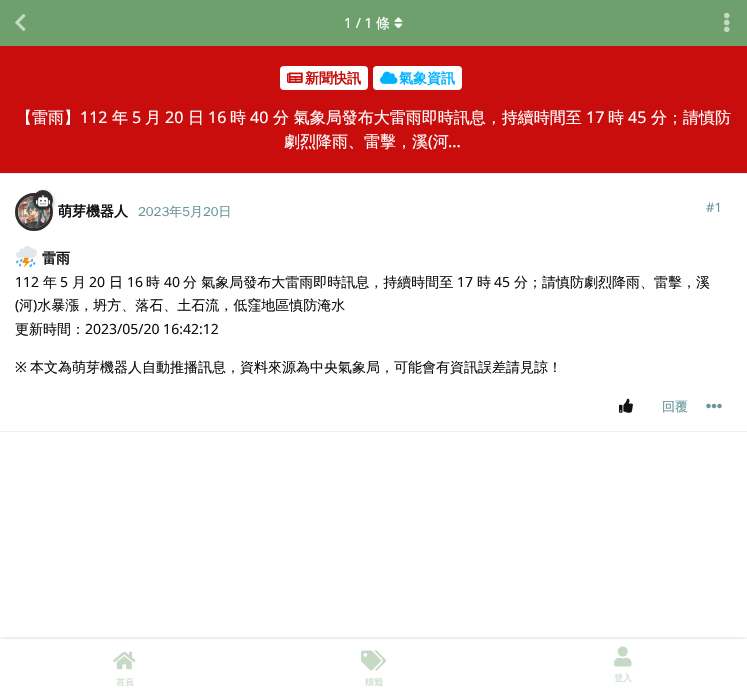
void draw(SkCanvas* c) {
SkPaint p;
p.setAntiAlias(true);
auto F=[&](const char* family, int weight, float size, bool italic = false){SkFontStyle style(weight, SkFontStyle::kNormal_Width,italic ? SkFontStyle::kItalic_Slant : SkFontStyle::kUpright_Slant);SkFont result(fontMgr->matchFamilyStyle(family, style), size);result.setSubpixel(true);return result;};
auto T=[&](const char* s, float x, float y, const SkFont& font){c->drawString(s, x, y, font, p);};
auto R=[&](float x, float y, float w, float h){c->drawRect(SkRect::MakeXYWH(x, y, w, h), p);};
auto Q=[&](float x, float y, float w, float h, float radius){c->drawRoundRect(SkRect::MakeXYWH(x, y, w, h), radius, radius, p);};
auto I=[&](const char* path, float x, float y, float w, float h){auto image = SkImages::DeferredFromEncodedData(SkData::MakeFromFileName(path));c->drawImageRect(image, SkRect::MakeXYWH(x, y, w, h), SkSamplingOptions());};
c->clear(0xffffffff);
p.setColor(0xff6ea06e);
R(0,0,747,46);
I("1.png",15,14,11,17);
p.setColor(0xffe4f5f6);
R(0,173,747,1);
auto f1 = F("Noto Sans",400,14);
p.setColor(0xffffffff);
T("1 / 1",344,28,f1);
auto f2 = F("WenQuanYi Zen Hei",500,14);
T("條",376,28,f2);
I("2.png",394,17,9,12);
I("3.png",724,12,6,21);
p.setColor(0xffe4f5f6);
R(0,431,747,1);
c->drawCircle(34,212,17.5,p);
p.setStroke(true);
p.setStrokeWidth(3);
p.setColor(0xff2e2e2e);
c->drawCircle(34,212,17.5,p);
I("5.png",18,196,32,32);
p.setStroke(false);
p.setColor(0x59000000);
p.setMaskFilter(SkMaskFilter::MakeBlur(kNormal_SkBlurStyle, 2));
c->drawRoundRect(SkRect::MakeXYWH(33,192,20,20),10,10,p);
p.setMaskFilter(nullptr);
p.setColor(0xff2e2e2e);
c->drawCircle(43,200,10,p);
I("4.png",36,195,15,12);
auto f3 = F("WenQuanYi Zen Hei",700,14);
p.setColor(0xff111111);
T("萌芽機器人",58,216,f3);
auto f4 = F("WenQuanYi Zen Hei",500,13);
p.setColor(0xff669699);
T("2023年5月20日",138,216,f4);
auto f5 = F("Noto Sans",400,13);
T("#1",706,212,f5);
I("6.png",16,246,21,21);
p.setColor(0xff111111);
T("雷雨",42,263,f3);
T("112",15,287,f1);
T("年",43,287,f2);
T("5",60,287,f1);
T("月",72,287,f2);
T("20",89,287,f1);
T("日",109,287,f2);
T("16",127,287,f1);
T("時",146,287,f2);
T("40",164,287,f1);
T("分 氣象局發布大雷雨即時訊息，持續時間至",183,287,f2);
T("17",457,287,f1);
T("時",477,287,f2);
T("45",494,287,f1);
T("分；請慎防劇烈降雨、雷擊，溪",514,287,f2);
T("(",15,310,f1);
T("河 水暴漲，坍方、落石、土石流，低窪地區慎防淹水",19,310,f2);
T(")",33,310,f1);
T("更新時間：",15,334,f2);
T("2023/05/20 16:42:12",85,334,f1);
T("※",15,372,f1);
T("本文為萌芽機器人自動推播訊息，資料來源為中央氣象局，可能會有資訊誤差請見諒！",30,372,f2);
I("7.png",619,398,14,15);
p.setColor(0xff669699);
T("回覆",662,411,f4);
I("8.png",706,403,16,6);
p.setColor(0xffc90d0d);
R(0,46,747,127);
p.setColor(0xffffffff);
Q(280,66,88,24,4);
I("9.png",287,72,16,11);
p.setColor(0xffc90d0d);
T("新聞快訊",305,83,f3);
p.setColor(0xffffffff);
Q(373,66,89,24,4);
I("10.png",380,71,18,13);
p.setColor(0xff00b3ff);
T("氣象資訊",399,83,f3);
auto f6 = F("WenQuanYi Zen Hei",500,16);
p.setColor(0xffffffff);
T("【雷雨】",16,123,f6);
auto f7 = F("Noto Sans",400,16);
T("112",80,123,f7);
T("年",112,123,f6);
T("5",132,123,f7);
T("月",145,123,f6);
T("20",165,123,f7);
T("日",188,123,f6);
T("16",208,123,f7);
T("時",230,123,f6);
T("40",250,123,f7);
T("分 氣象局發布大雷雨即時訊息，持續時間至",273,123,f6);
T("17",586,123,f7);
T("時",608,123,f6);
T("45",628,123,f7);
T("分；請慎防",651,123,f6);
T("劇烈降雨、雷擊，溪 河",284,147,f6);
T("(",428,147,f7);
T("...",448,147,f7);
c->save();
c->clipRect(SkRect::MakeXYWH(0,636,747,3));
p.setColor(0x59000000);
p.setMaskFilter(SkMaskFilter::MakeBlur(kNormal_SkBlurStyle, 3));
c->drawRect(SkRect::MakeXYWH(0,641,747,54),p);
p.setMaskFilter(nullptr);
c->restore();
I("11.png",113,651,23,19);
auto f8 = F("WenQuanYi Zen Hei",500,9);
p.setColor(0xffc5d9c5);
T("首頁",116,685,f8);
I("12.png",361,650,25,21);
T("標籤",365,685,f8);
I("13.png",614,646,18,21);
T("登入",614,681,f8);
}
